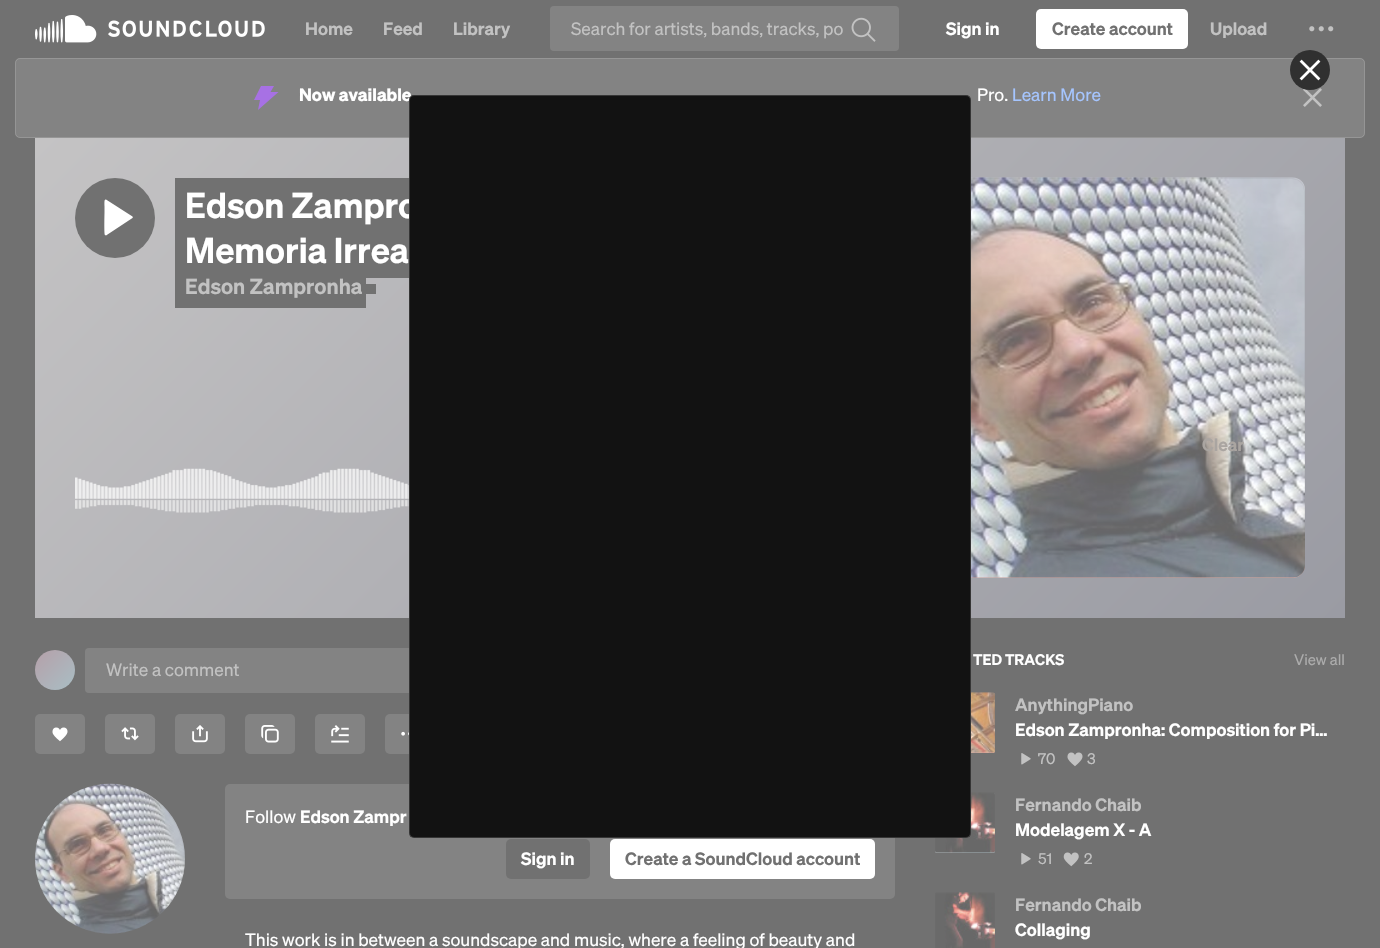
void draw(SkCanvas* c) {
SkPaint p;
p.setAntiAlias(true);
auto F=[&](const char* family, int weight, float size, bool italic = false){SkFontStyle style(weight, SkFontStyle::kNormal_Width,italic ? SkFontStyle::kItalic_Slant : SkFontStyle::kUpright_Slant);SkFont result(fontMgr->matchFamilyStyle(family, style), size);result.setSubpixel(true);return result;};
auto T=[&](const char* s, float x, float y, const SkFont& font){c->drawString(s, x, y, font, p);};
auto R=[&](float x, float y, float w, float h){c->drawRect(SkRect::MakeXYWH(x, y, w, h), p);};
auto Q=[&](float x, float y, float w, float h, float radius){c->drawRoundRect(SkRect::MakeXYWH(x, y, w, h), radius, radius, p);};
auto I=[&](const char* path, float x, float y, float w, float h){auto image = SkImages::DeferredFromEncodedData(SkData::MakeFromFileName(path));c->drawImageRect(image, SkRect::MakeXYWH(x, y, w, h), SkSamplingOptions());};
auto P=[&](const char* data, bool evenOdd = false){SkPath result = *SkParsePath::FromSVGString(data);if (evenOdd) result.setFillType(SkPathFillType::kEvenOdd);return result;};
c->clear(0xff717171);
I("1.png",35,15,230,28);
auto f1 = F("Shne",600,17.5);
p.setColor(0xffc2c2c2);
T("Home",305,35,f1);
T("Feed",383,35,f1);
T("Library",453,35,f1);
p.setColor(0xff838383);
Q(550,6,349,45,4);
auto f2 = F("Shne",400,17.5);
p.setColor(0xffc2c2c2);
T("Search for artists, bands, tracks, po",571,35,f2);
I("2.png",851,17,25,25);
p.setColor(0xffffffff);
T("Sign in",946,35,f1);
Q(1036,9,152,40,5);
p.setColor(0xff717171);
T("Create account",1052,35,f1);
p.setColor(0xffc2c2c2);
T("Upload",1210,35,f1);
I("3.png",1309,26,25,6);
p.setColor(0xff838383);
Q(15,58,1350,80,5);
p.setStroke(true);
p.setStrokeWidth(1);
p.setColor(0x26ffffff);
c->drawRoundRect(SkRect::MakeXYWH(15.5,58.5,1349,79),4.5,4.5,p);
p.setStroke(false);
p.setColor(0xffa771e4);
c->drawPath(P("M261 86l-7 14h6l-2 10l20.5-18h-8l3.5-6z"),p);
auto f3 = F("Shne",700,17.5);
p.setColor(0xffffffff);
T("Now available",299,101,f3);
T("Pro.",977,101,f2);
p.setColor(0xffa5c5ff);
T("Learn More",1012,101,f2);
I("4.png",1303,88,19,19);
{
const SkColor colors[] = {0xffc4c3c4,0xff9a9ba3};
const float stops[] = {0,1};
const SkPoint ends[] = {{243,-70}, {1138,825}};
p.setShader(SkGradientShader::MakeLinear(ends, colors, stops, 2, SkTileMode::kClamp));
p.setAlpha(255);
}
R(35,138,1310,480);
p.setShader(nullptr);
p.setColor(0xff717171);
c->drawCircle(115,218,40,p);
p.setColor(0xffffffff);
c->drawPath(P("M132.5 216.5c.5 .5 .5 1 0 1.5l-26.5 17.5l-1-.5c-1-.5-.5-20.5-.5-23v-5.5c0-4-.5-7.5 1.5-7z",true),p);
p.setColor(0xff717171);
R(175,178,234,100);
auto f4 = F("Shne",600,35);
p.setColor(0xffffffff);
T("Edson Zampro",185,218,f4);
T("Memoria Irrea",185,263,f4);
p.setColor(0xff717171);
R(175,278,191,30);
auto f5 = F("Shne",600,21.25);
p.setColor(0xffc2c2c2);
T("Edson Zampronha",185,294,f5);
p.setColor(0xff717171);
R(366,284,10,10);
{
const SkColor colors[] = {0xffb5a0a9,0xfff0b5a8};
const float stops[] = {0,1};
const SkPoint ends[] = {{905,178}, {1305,578}};
p.setShader(SkGradientShader::MakeLinear(ends, colors, stops, 2, SkTileMode::kClamp));
p.setAlpha(255);
}
Q(905,178,400,400,13);
I("5.png",971,177,334,401);
p.setStroke(true);
p.setShader(nullptr);
p.setColor(0x1a717171);
c->drawRoundRect(SkRect::MakeXYWH(905.5,178.5,399,399),12.5,12.5,p);
I("6.png",75,468,334,45);
p.setStroke(false);
{
const SkColor colors[] = {0xffb5a0a9,0xffa9bec4};
const float stops[] = {0,1};
const SkPoint ends[] = {{35,650}, {75,690}};
p.setShader(SkGradientShader::MakeLinear(ends, colors, stops, 2, SkTileMode::kClamp));
p.setAlpha(255);
}
c->drawCircle(55,670,20,p);
p.setShader(nullptr);
p.setColor(0xff838383);
Q(85,648,720,45,4);
p.setColor(0xffc2c2c2);
T("Write a comment",106,676,f2);
p.setColor(0xff838383);
Q(35,714,50,40,5);
I("7.png",52,727,16,15);
Q(105,714,50,40,5);
I("8.png",121,727,18,14);
Q(175,714,50,40,5);
I("9.png",192,725,16,18);
Q(245,714,50,40,5);
I("10.png",261,725,18,18);
Q(315,714,50,40,5);
I("11.png",331,725,18,18);
Q(385,714,50,40,5);
I("12.png",401,731,8,5);
I("13.png",35,783,150,151);
p.setStroke(true);
p.setColor(0x1a717171);
c->drawCircle(110,859,74.5,p);
p.setStroke(false);
p.setColor(0xff838383);
Q(225,784,670,115,5);
p.setColor(0xffffffff);
T("Follow",245,823,f2);
T("Edson Zampr",300,823,f1);
p.setColor(0xff717171);
Q(506,839,84,40,5);
p.setColor(0xffffffff);
T("Sign in",521,865,f1);
Q(610,839,265,40,5);
p.setColor(0xff717171);
T("Create a SoundCloud account",625,865,f1);
p.setColor(0xffffffff);
T("This work is in between a soundscape and music, where a feeling of beauty and",245,946,f2);
auto f6 = F("Shne",600,15);
T("TED TRACKS",973,665,f6);
auto f7 = F("Shne",400,15);
p.setColor(0xffacacac);
T("View all",1294,665,f7);
{
const SkColor colors[] = {0xffbbb5b6,0xfff0b5a8};
const float stops[] = {0,1};
const SkPoint ends[] = {{935,693}, {995,753}};
p.setShader(SkGradientShader::MakeLinear(ends, colors, stops, 2, SkTileMode::kClamp));
p.setAlpha(255);
}
Q(935,693,60,60,2);
I("14.png",971,692,25,61);
p.setStroke(true);
p.setShader(nullptr);
p.setColor(0x1a717171);
c->drawRoundRect(SkRect::MakeXYWH(935.5,693.5,59,59),1.5,1.5,p);
p.setStroke(false);
p.setColor(0xffc2c2c2);
T("AnythingPiano",1015,711,f1);
p.setColor(0xffffffff);
T("Edson Zampronha: Composition for Pi…",1015,736,f1);
I("15.png",1021,753,10,12);
p.setColor(0xffc2c2c2);
T("70",1038,764,f7);
I("16.png",1067,752,16,15);
T("3",1087,764,f7);
{
const SkColor colors[] = {0xffbbb5b6,0xffa9bec4};
const float stops[] = {0,1};
const SkPoint ends[] = {{935,793}, {995,853}};
p.setShader(SkGradientShader::MakeLinear(ends, colors, stops, 2, SkTileMode::kClamp));
p.setAlpha(255);
}
Q(935,793,60,60,2);
I("17.png",935,792,60,61);
p.setStroke(true);
p.setShader(nullptr);
p.setColor(0x1a717171);
c->drawRoundRect(SkRect::MakeXYWH(935.5,793.5,59,59),1.5,1.5,p);
p.setStroke(false);
p.setColor(0xffc2c2c2);
T("Fernando Chaib",1015,811,f1);
p.setColor(0xffffffff);
T("Modelagem X - A",1015,836,f1);
I("15.png",1021,853,10,12);
p.setColor(0xffc2c2c2);
T("51",1038,864,f7);
I("18.png",1063,852,16,15);
T("2",1084,864,f7);
I("19.png",935,892,60,56);
p.setStroke(true);
p.setColor(0x1a717171);
c->drawRoundRect(SkRect::MakeXYWH(935.5,893.5,59,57),1.5,1.5,p);
p.setStroke(false);
p.setColor(0xffc2c2c2);
T("Fernando Chaib",1015,911,f1);
p.setColor(0xffffffff);
T("Collaging",1015,936,f1);
p.setColor(0xffaaa5a1);
T("Clear",1202,451,f1);
p.setColor(0xff303030);
c->drawCircle(1310,70,20,p);
I("20.png",1299,59,22,22);
p.setColor(0xff121212);
Q(409,95,562,743,5);
p.setStroke(true);
p.setColor(0x26ffffff);
c->drawRoundRect(SkRect::MakeXYWH(409.5,95.5,561,742),4.5,4.5,p);
}
